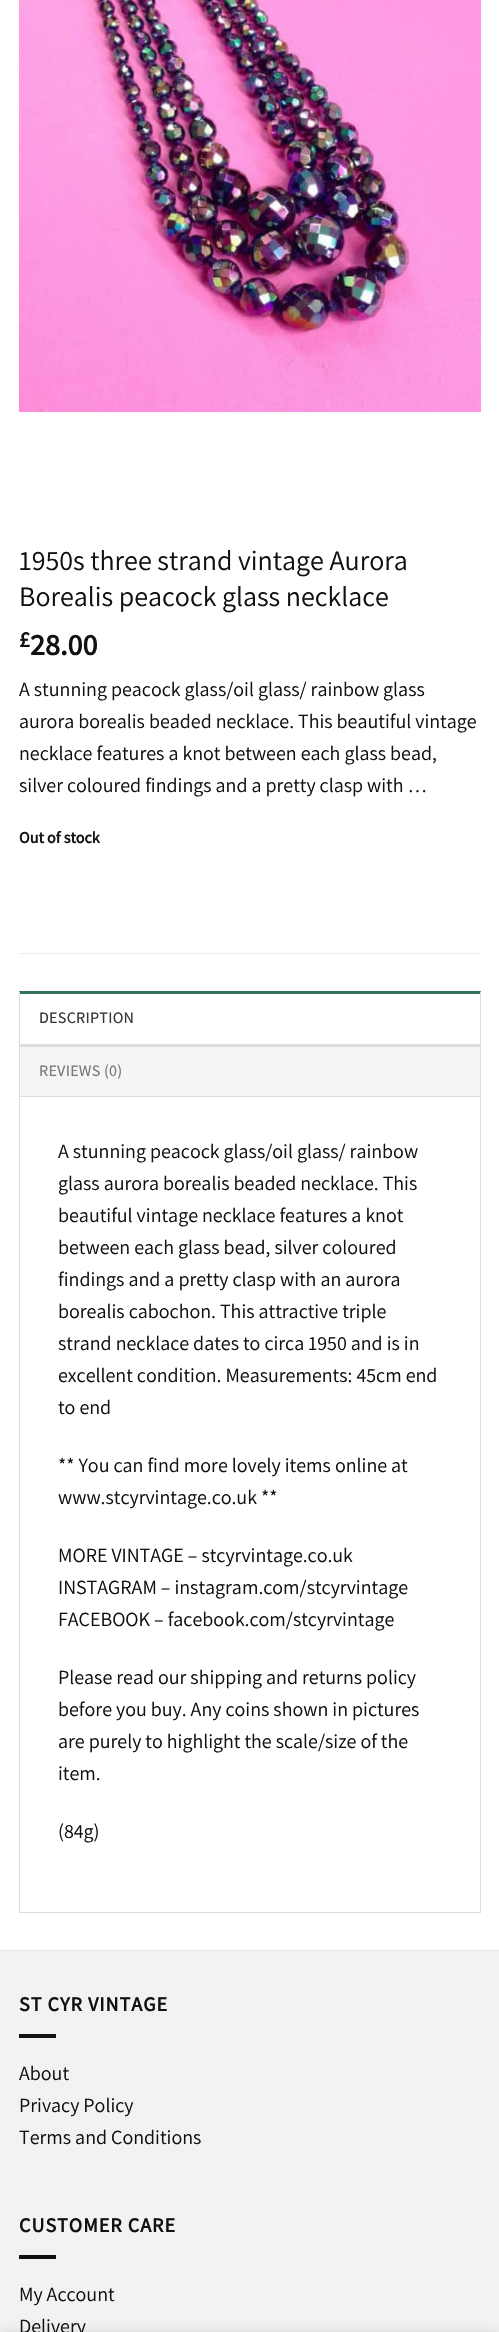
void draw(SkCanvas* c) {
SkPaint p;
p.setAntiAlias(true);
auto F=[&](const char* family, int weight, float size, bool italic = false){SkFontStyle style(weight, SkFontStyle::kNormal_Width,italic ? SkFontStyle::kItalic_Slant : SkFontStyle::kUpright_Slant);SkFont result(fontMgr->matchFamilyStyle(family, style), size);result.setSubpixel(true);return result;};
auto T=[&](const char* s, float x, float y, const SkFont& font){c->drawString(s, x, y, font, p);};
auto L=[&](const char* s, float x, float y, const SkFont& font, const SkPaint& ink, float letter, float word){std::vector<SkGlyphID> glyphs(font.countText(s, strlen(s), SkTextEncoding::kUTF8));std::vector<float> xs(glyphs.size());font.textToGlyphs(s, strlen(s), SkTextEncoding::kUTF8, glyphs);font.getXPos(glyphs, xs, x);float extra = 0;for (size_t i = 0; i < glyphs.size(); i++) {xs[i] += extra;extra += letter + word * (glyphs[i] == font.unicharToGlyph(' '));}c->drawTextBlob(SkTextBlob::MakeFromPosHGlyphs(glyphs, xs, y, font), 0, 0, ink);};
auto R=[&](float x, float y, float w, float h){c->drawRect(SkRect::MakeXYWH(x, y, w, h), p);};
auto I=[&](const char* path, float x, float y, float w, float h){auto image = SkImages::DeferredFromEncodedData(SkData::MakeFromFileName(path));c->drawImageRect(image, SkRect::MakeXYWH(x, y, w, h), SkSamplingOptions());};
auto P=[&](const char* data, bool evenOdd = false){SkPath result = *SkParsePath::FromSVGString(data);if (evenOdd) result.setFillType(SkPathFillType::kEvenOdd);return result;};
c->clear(0xffffffff);
I("1.png",18,0,464,413);
auto f1 = F("Assistant",400,28);
p.setColor(0xff111111);
T("1950s three strand vintage Aurora",19,570,f1);
T("Borealis peacock glass necklace",19,606,f1);
auto f2 = F("Assistant",700,22);
T("£",19,647,f2);
auto f3 = F("Assistant",700,30);
T("28.00",30,655,f3);
auto f4 = F("Assistant",400,20);
T("A stunning peacock glass/oil glass/ rainbow glass",19,696,f4);
T("aurora borealis beaded necklace. This beautiful vintage",19,728,f4);
T("necklace features a knot between each glass bead,",19,760,f4);
T("silver coloured findings and a pretty clasp with …",19,792,f4);
auto f5 = F("Assistant",700,16);
T("Out of stock",19,843,f5);
p.setColor(0xffececec);
R(19,953,462,1);
p.setColor(0xff337357);
c->drawPath(P("M19 991h462l-1 3h-460z"),p);
p.setColor(0xffdddddd);
c->drawPath(P("M481 991v53h-1v-50z"),p);
c->drawPath(P("M19 1044v-53l1 3v50z"),p);
auto f6 = F("Assistant",500,16);
p.setColor(0xff363636);
L("DESCRIPTION",39,1023,f6,p,.25,0);
p.setColor(0xfff5f5f5);
R(20,1047,460,49);
p.setColor(0xffdddddd);
R(19,1044,462,3);
R(480,1044,1,52);
R(19,1044,1,52);
p.setColor(0xff7b7b7b);
L("REVIEWS (0)",39,1076,f6,p,.25,0);
p.setStroke(true);
p.setStrokeWidth(1);
p.setColor(0xffdddddd);
c->drawRect(SkRect::MakeXYWH(19.5,1096.5,461,816),p);
p.setStroke(false);
p.setColor(0xff111111);
T("A stunning peacock glass/oil glass/ rainbow",58,1158,f4);
T("glass aurora borealis beaded necklace. This",58,1190,f4);
T("beautiful vintage necklace features a knot",58,1222,f4);
T("between each glass bead, silver coloured",58,1254,f4);
T("findings and a pretty clasp with an aurora",58,1286,f4);
T("borealis cabochon. This attractive triple",58,1318,f4);
T("strand necklace dates to circa 1950 and is in",58,1350,f4);
T("excellent condition. Measurements: 45cm end",58,1382,f4);
T("to end",58,1414,f4);
T("** You can find more lovely items online at",58,1472,f4);
T("www.stcyrvintage.co.uk **",58,1504,f4);
T("MORE VINTAGE – stcyrvintage.co.uk",58,1562,f4);
T("INSTAGRAM – instagram.com/stcyrvintage",58,1594,f4);
T("FACEBOOK – facebook.com/stcyrvintage",58,1626,f4);
T("Please read our shipping and returns policy",58,1684,f4);
T("before you buy. Any coins shown in pictures",58,1716,f4);
T("are purely to highlight the scale/size of the",58,1748,f4);
T("item.",58,1780,f4);
T("(84g)",58,1838,f4);
p.setColor(0xfff2f2f2);
R(0,1951,499,381);
p.setColor(0xffe6e6e6);
R(0,1950,499,1);
auto f7 = F("Assistant",700,20);
p.setColor(0xff111111);
L("ST CYR VINTAGE",19,2011,f7,p,1,0);
R(19,2034,37,4);
T("About",19,2080,f4);
T("Privacy Policy",19,2112,f4);
T("Terms and Conditions",19,2144,f4);
L("CUSTOMER CARE",19,2232,f7,p,1,0);
R(19,2255,37,4);
T("My Account",19,2301,f4);
T("Delivery",19,2333,f4);
p.setColor(0x24000000);
p.setMaskFilter(SkMaskFilter::MakeBlur(kNormal_SkBlurStyle, 5.5));
c->drawRect(SkRect::MakeXYWH(0,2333,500,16),p);
p.setMaskFilter(nullptr);
}
